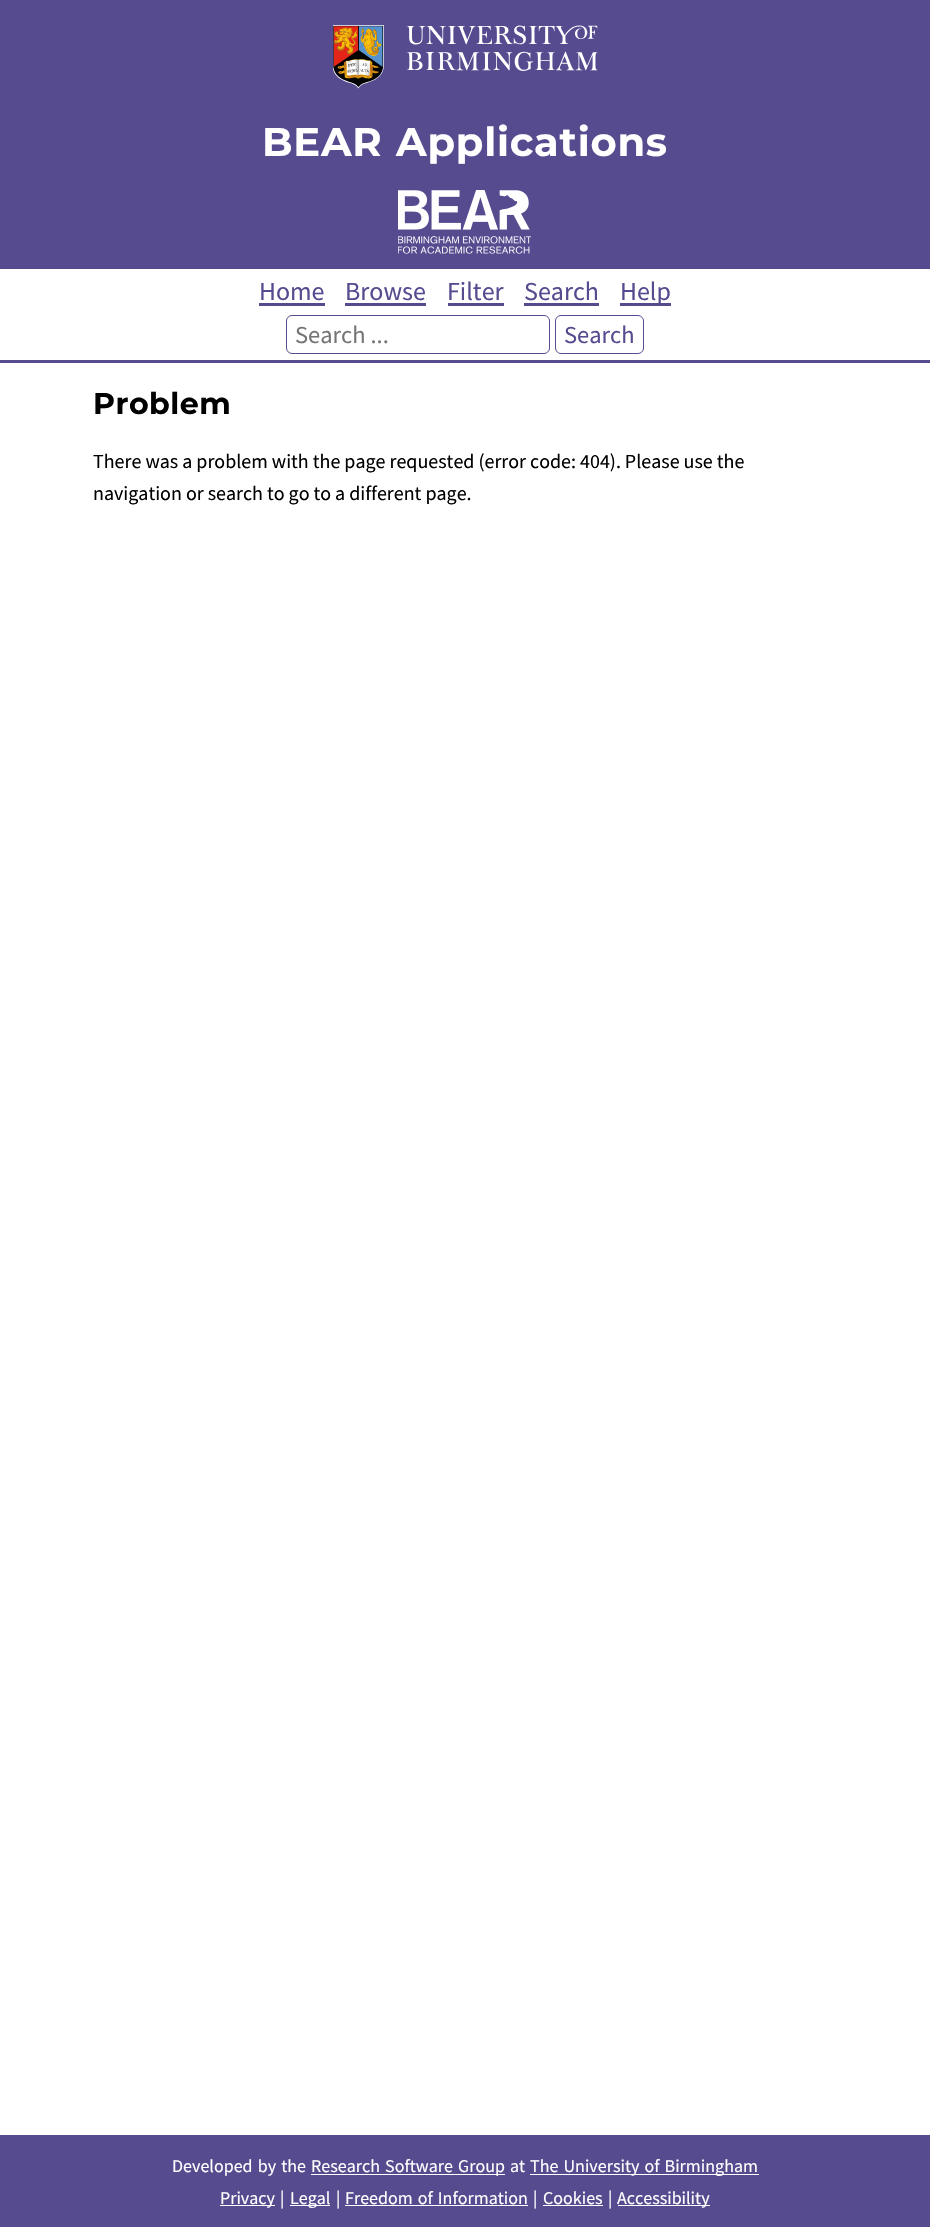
void draw(SkCanvas* c) {
SkPaint p;
p.setAntiAlias(true);
auto F=[&](const char* family, int weight, float size, bool italic = false){SkFontStyle style(weight, SkFontStyle::kNormal_Width,italic ? SkFontStyle::kItalic_Slant : SkFontStyle::kUpright_Slant);SkFont result(fontMgr->matchFamilyStyle(family, style), size);result.setSubpixel(true);return result;};
auto T=[&](const char* s, float x, float y, const SkFont& font){c->drawString(s, x, y, font, p);};
auto L=[&](const char* s, float x, float y, const SkFont& font, const SkPaint& ink, float letter, float word){std::vector<SkGlyphID> glyphs(font.countText(s, strlen(s), SkTextEncoding::kUTF8));std::vector<float> xs(glyphs.size());font.textToGlyphs(s, strlen(s), SkTextEncoding::kUTF8, glyphs);font.getXPos(glyphs, xs, x);float extra = 0;for (size_t i = 0; i < glyphs.size(); i++) {xs[i] += extra;extra += letter + word * (glyphs[i] == font.unicharToGlyph(' '));}c->drawTextBlob(SkTextBlob::MakeFromPosHGlyphs(glyphs, xs, y, font), 0, 0, ink);};
auto R=[&](float x, float y, float w, float h){c->drawRect(SkRect::MakeXYWH(x, y, w, h), p);};
auto I=[&](const char* path, float x, float y, float w, float h){auto image = SkImages::DeferredFromEncodedData(SkData::MakeFromFileName(path));c->drawImageRect(image, SkRect::MakeXYWH(x, y, w, h), SkSamplingOptions());};
c->clear(0xffffffff);
p.setColor(0xff574b90);
R(0,0,930,269);
I("1.png",333,25,265,64);
auto f1 = F("Montserrat",700,40);
p.setColor(0xffffffff);
L("BEAR Applications",262,156,f1,p,.75,1.5);
I("2.png",398,190,133,64);
p.setColor(0xff574b90);
R(0,360,930,3);
auto f2 = F("Source Sans Pro",400,26);
T("Home",259,300,f2);
R(259,303,66,3);
T("Browse",345,300,f2);
R(345,303,81,3);
T("Filter",447,300,f2);
R(448,303,56,3);
T("Search",524,300,f2);
R(524,303,75,3);
R(620,303,51,3);
T("Help",620,300,f2);
p.setStroke(true);
p.setStrokeWidth(1);
c->drawRoundRect(SkRect::MakeXYWH(286.5,315.5,263,38),5.5,5.5,p);
auto f3 = F("Source Sans Pro",400,24.5);
p.setStroke(false);
p.setColor(0xff757575);
T("Search ...",295,343,f3);
p.setStroke(true);
p.setColor(0xff574b90);
c->drawRoundRect(SkRect::MakeXYWH(555.5,315.5,88,38),5.5,5.5,p);
p.setStroke(false);
T("Search",564,343,f3);
auto f4 = F("Montserrat",700,30);
p.setColor(0xff000000);
L("Problem",93,414,f4,p,.5,0);
auto f5 = F("Source Sans Pro",400,20);
T("There was a problem with the page requested (error code: 404). Please use the",93,468,f5);
T("navigation or search to go to a different page.",93,500,f5);
p.setColor(0xff574b90);
R(0,2135,930,92);
auto f6 = F("Source Sans Pro",400,18);
p.setColor(0xffffffff);
L("Developed by the",172,2172,f6,p,0,1.5);
R(311,2174,194,1);
L("Research Software Group",311,2172,f6,p,0,1.5);
T("at",510,2172,f6);
R(530,2174,229,1);
L("The University of Birmingham",530,2172,f6,p,0,1.5);
R(220,2205,55,1);
T("Privacy",220,2204,f6);
T("|",280,2204,f6);
R(290,2205,40,1);
T("Legal",290,2204,f6);
T("|",336,2204,f6);
L("Freedom of Information",345,2204,f6,p,0,1.5);
R(345,2205,183,1);
T("|",533,2204,f6);
T("Cookies",543,2204,f6);
R(543,2205,60,1);
T("|",608,2204,f6);
R(618,2205,92,1);
T("Accessibility",617,2204,f6);
}
